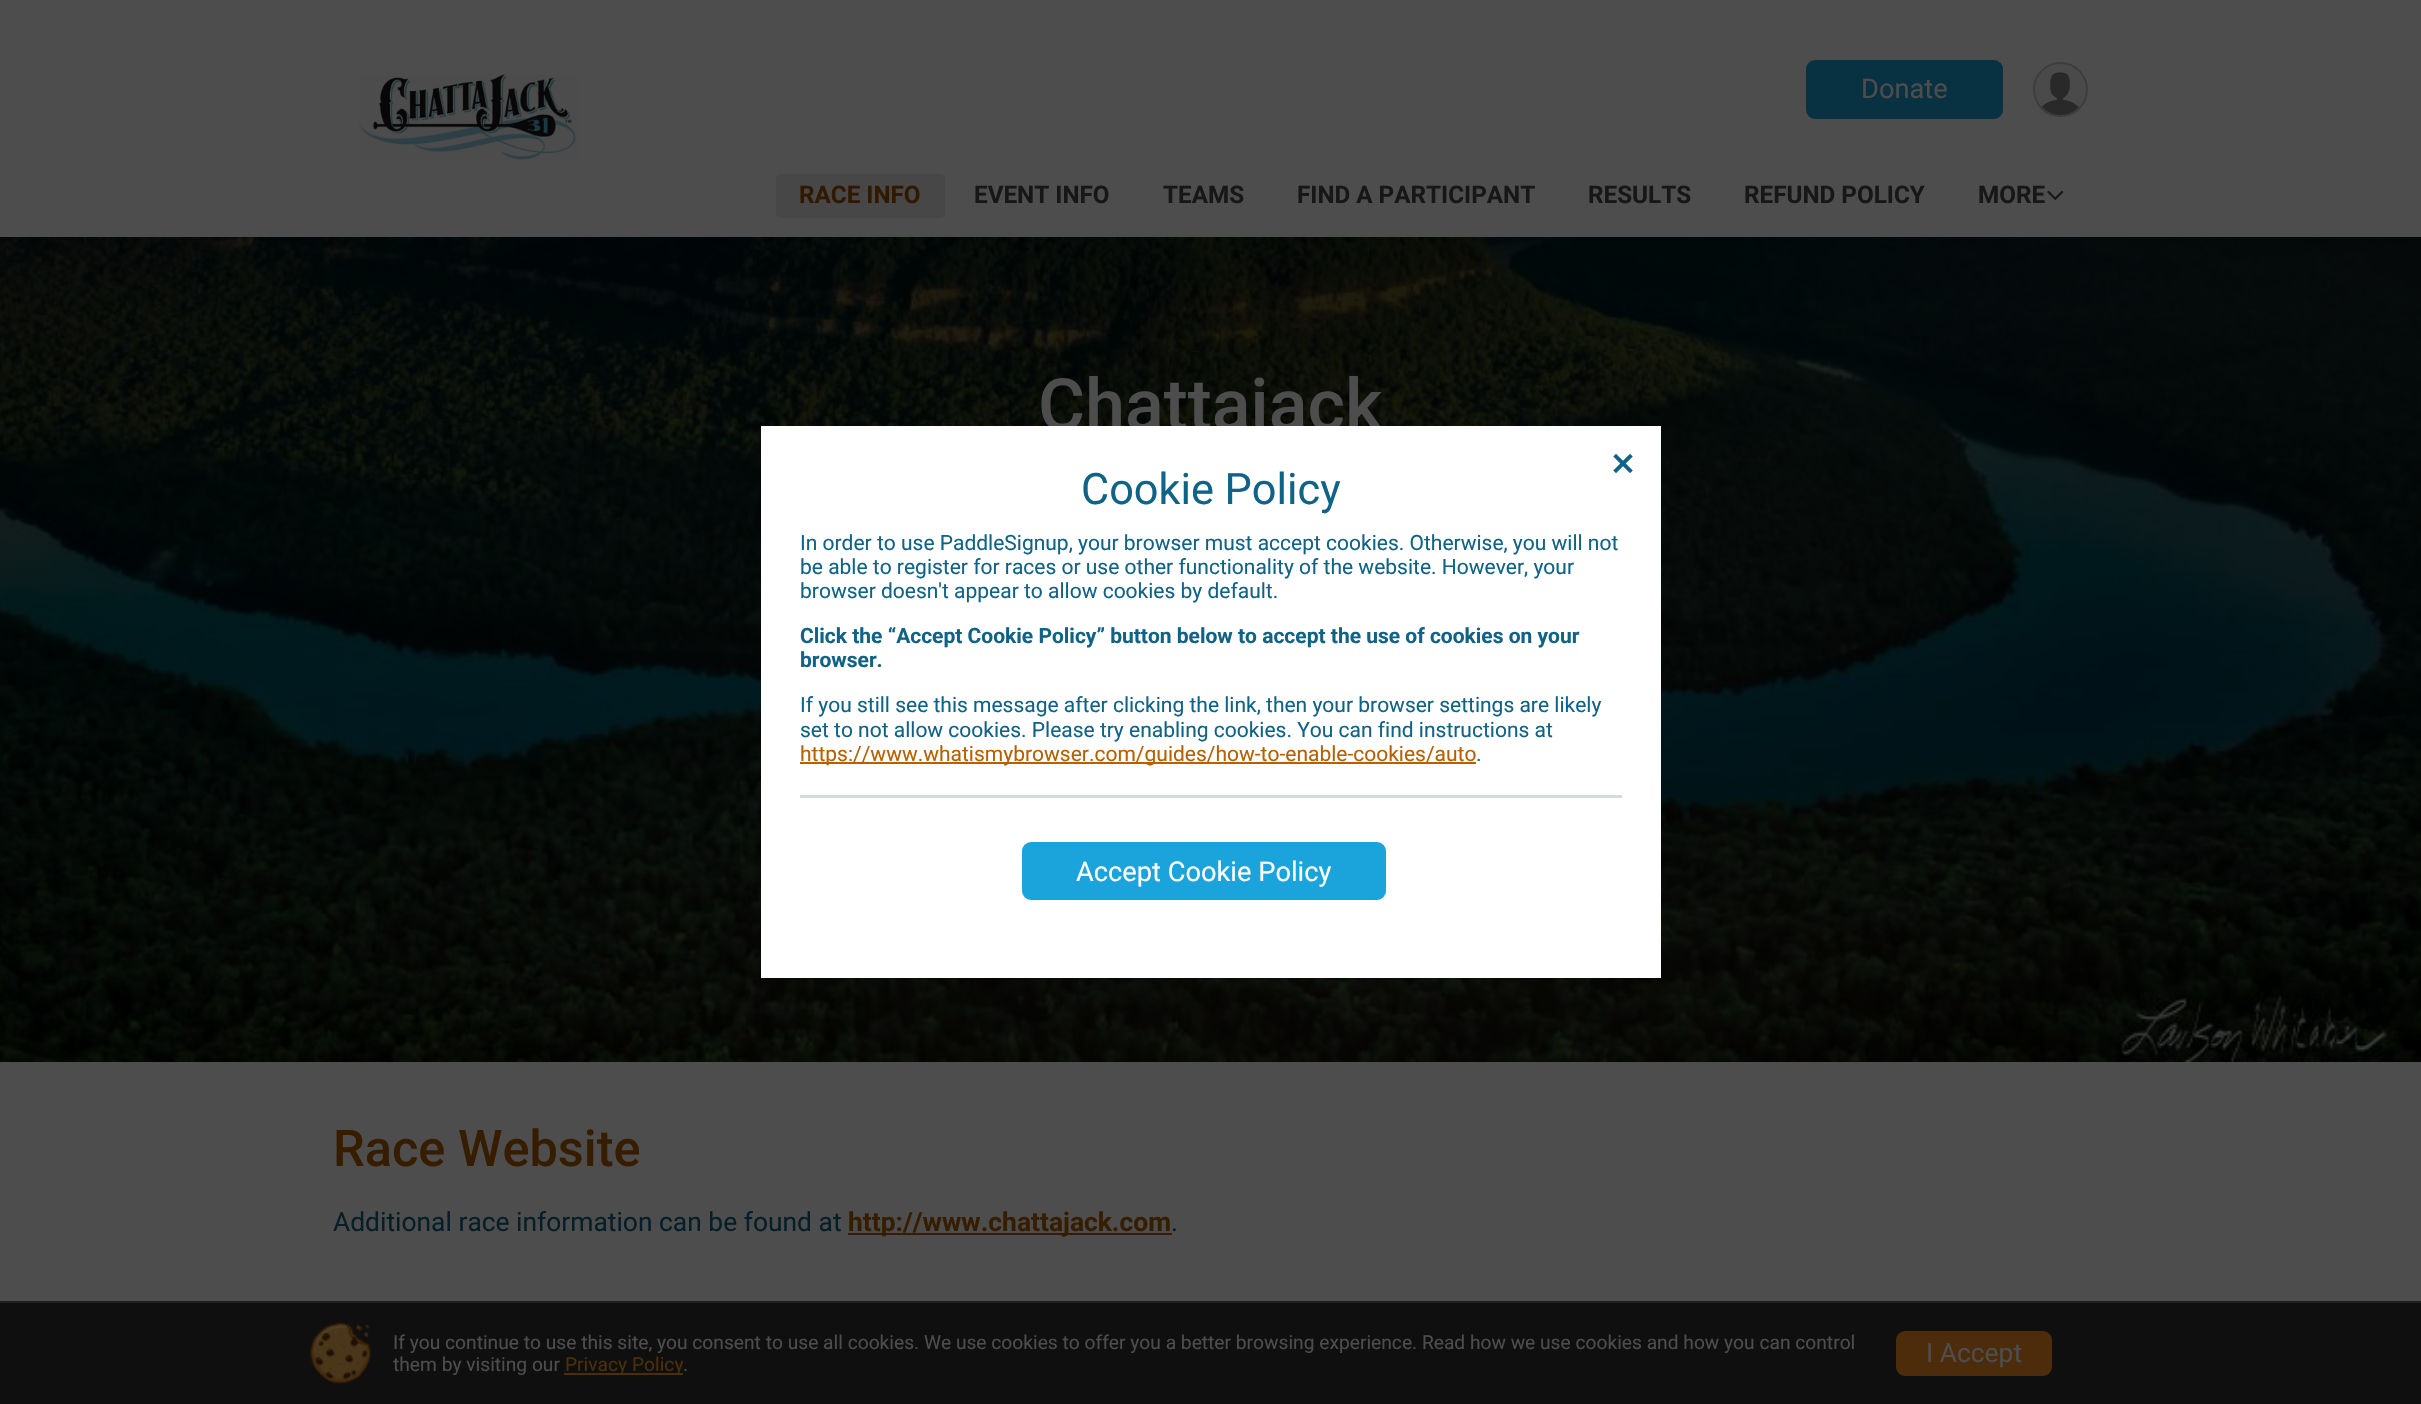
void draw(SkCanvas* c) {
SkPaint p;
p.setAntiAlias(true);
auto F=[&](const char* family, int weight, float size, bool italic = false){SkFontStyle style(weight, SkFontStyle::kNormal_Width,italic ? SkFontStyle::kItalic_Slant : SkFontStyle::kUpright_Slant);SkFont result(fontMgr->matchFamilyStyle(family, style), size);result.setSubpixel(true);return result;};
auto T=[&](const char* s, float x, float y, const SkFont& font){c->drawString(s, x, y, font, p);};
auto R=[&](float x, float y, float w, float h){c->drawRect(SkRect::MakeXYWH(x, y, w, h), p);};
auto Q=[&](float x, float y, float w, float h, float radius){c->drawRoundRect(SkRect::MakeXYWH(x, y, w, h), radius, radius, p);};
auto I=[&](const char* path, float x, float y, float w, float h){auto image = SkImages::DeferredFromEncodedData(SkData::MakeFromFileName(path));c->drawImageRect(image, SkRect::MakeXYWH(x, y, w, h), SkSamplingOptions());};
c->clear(0xff4d4d4d);
I("1.png",359,74,219,86);
p.setColor(0xff083142);
Q(1806,60,197,59,9);
auto f1 = F("Roboto",400,27.25);
p.setColor(0xff4d4d4d);
T("Donate",1861,98,f1);
I("2.png",2034,63,52,53);
p.setStroke(true);
p.setStrokeWidth(2);
p.setColor(0xff3d3d3d);
c->drawCircle(2060.5,89.5,26.5,p);
p.setStroke(false);
p.setColor(0xff474747);
Q(776,174,169,44,5);
auto f2 = F("Roboto",700,24.25);
p.setColor(0xff311900);
T("RACE INFO",799,203,f2);
p.setColor(0xff171717);
T("EVENT INFO",974,203,f2);
T("TEAMS",1163,203,f2);
T("FIND A PARTICIPANT",1297,203,f2);
T("RESULTS",1588,203,f2);
T("REFUND POLICY",1744,203,f2);
T("MORE",1978,203,f2);
I("3.png",2047,190,17,11);
I("4.png",0,237,2421,825);
auto f3 = F("Roboto",500,72);
p.setColor(0xff4d4d4d);
T("Chattajack",1038,430,f3);
auto f4 = F("Roboto",500,50.5);
p.setColor(0xff371d00);
T("Race Website",333,1166,f4);
auto f5 = F("Roboto",400,26.4);
p.setColor(0xff051e28);
T("Additional race information can be found at",333,1231,f5);
p.setColor(0xff371d00);
R(848,1233,324,2);
auto f6 = F("Roboto",700,26.4);
T("http://www.chattajack.com",848,1231,f6);
p.setColor(0xff051e28);
T(".",1171,1231,f5);
p.setStroke(true);
p.setColor(0xffffffff);
c->drawRect(SkRect::MakeXYWH(762,427,898,550),p);
p.setStroke(false);
R(763,428,896,548);
I("5.png",1613,453,20,21);
auto f7 = F("Roboto",400,43.25);
p.setColor(0xff106386);
T("Cookie Policy",1081,504,f7);
auto f8 = F("Roboto",400,21);
T("In order to use PaddleSignup, your browser must accept cookies. Otherwise, you will not",800,550,f8);
T("be able to register for races or use other functionality of the website. However, your",800,574,f8);
T("browser doesn't appear to allow cookies by default.",800,598,f8);
auto f9 = F("Roboto",700,21);
T("Click the “Accept Cookie Policy” button below to accept the use of cookies on your",800,643,f9);
T("browser.",800,667,f9);
T("If you still see this message after clicking the link, then your browser settings are likely",800,712,f8);
T("set to not allow cookies. Please try enabling cookies. You can find instructions at",800,737,f8);
p.setColor(0xffb75f01);
R(800,762,676,2);
T("https://www.whatismybrowser.com/guides/how-to-enable-cookies/auto",800,761,f8);
p.setColor(0xff106386);
T(".",1476,761,f8);
p.setColor(0xffd3dbdf);
R(800,795,822,3);
p.setColor(0xff1ba3dc);
Q(1022,842,364,58,9);
p.setColor(0xffffffff);
T("Accept Cookie Policy",1076,881,f1);
p.setColor(0xff0f0f0f);
R(0,1303,2421,101);
p.setColor(0xff1f1f1f);
R(0,1301,2421,2);
I("6.png",310,1323,61,61);
auto f10 = F("Roboto",400,19.2);
p.setColor(0xff4d4d4d);
T("If you continue to use this site, you consent to use all cookies. We use cookies to offer you a better browsing experience. Read how we use cookies and how you can control",393,1349,f10);
T("them by visiting our",393,1371,f10);
p.setColor(0xff4c2e0b);
R(564,1373,119,2);
T("Privacy Policy",565,1371,f10);
p.setColor(0xff4d4d4d);
T(".",683,1371,f10);
p.setColor(0xff4c2c0b);
Q(1896,1331,156,45,9);
p.setColor(0xff4d4d4d);
T("I Accept",1926,1362,f5);
}
